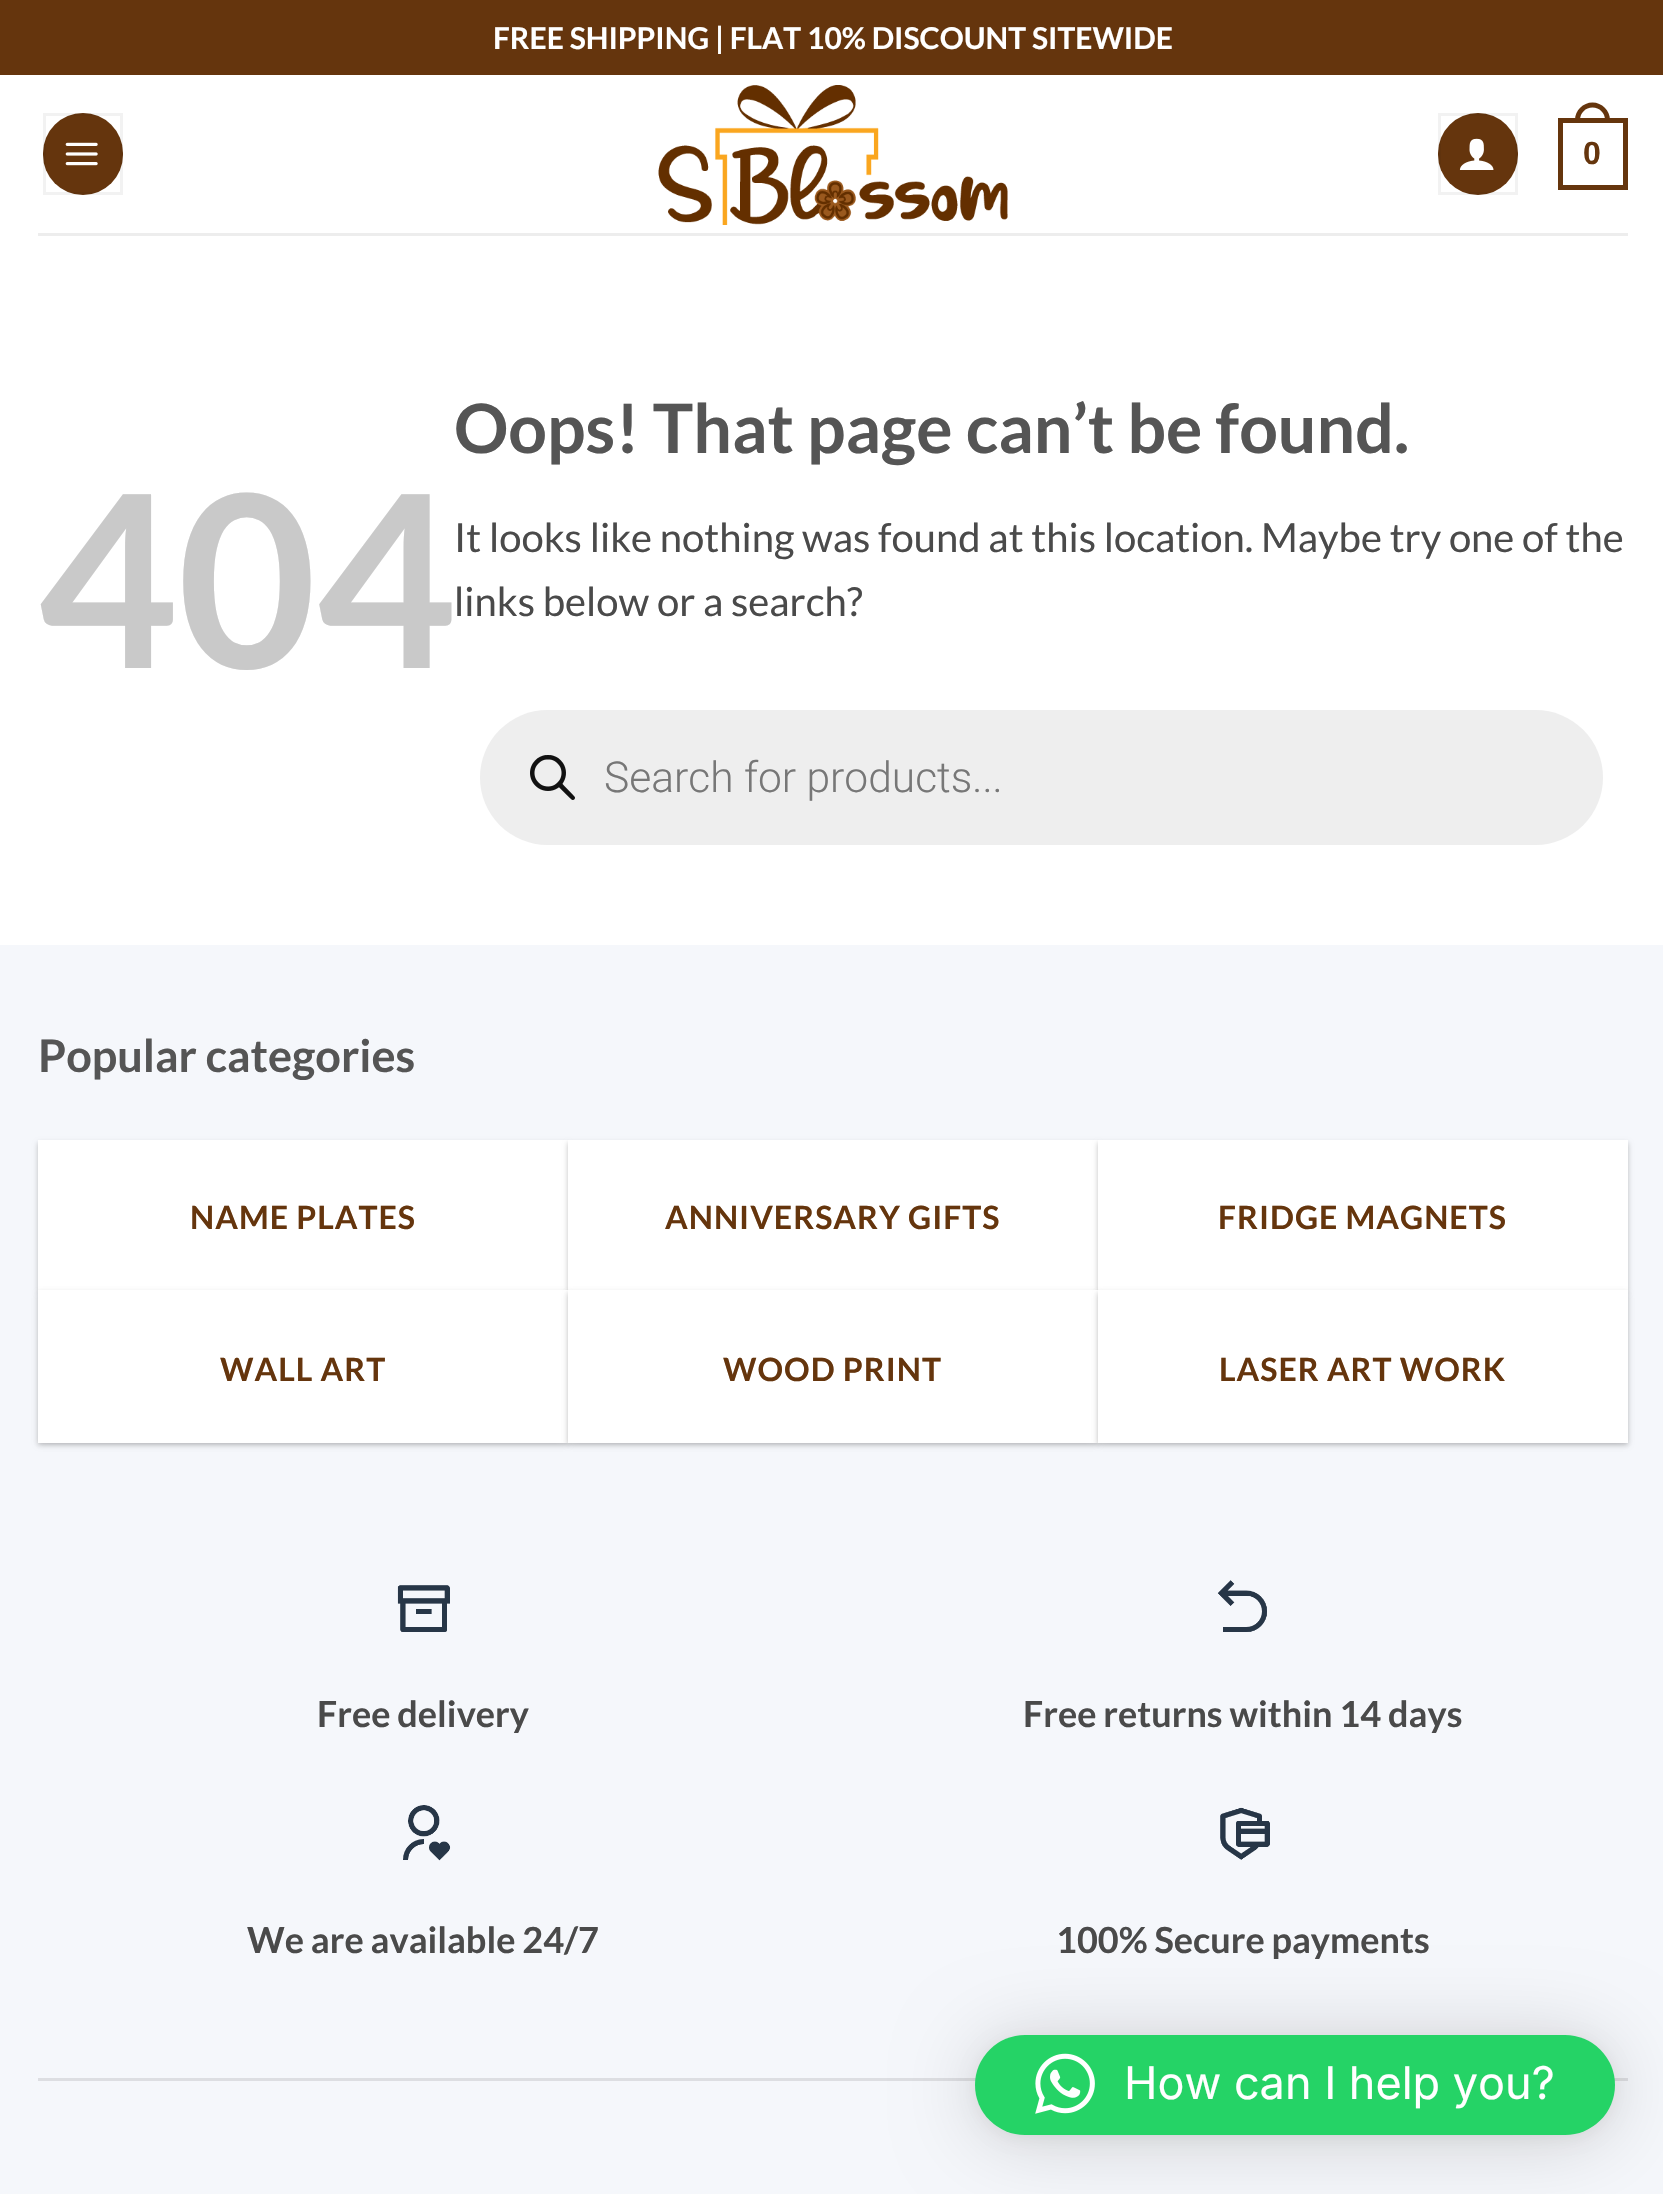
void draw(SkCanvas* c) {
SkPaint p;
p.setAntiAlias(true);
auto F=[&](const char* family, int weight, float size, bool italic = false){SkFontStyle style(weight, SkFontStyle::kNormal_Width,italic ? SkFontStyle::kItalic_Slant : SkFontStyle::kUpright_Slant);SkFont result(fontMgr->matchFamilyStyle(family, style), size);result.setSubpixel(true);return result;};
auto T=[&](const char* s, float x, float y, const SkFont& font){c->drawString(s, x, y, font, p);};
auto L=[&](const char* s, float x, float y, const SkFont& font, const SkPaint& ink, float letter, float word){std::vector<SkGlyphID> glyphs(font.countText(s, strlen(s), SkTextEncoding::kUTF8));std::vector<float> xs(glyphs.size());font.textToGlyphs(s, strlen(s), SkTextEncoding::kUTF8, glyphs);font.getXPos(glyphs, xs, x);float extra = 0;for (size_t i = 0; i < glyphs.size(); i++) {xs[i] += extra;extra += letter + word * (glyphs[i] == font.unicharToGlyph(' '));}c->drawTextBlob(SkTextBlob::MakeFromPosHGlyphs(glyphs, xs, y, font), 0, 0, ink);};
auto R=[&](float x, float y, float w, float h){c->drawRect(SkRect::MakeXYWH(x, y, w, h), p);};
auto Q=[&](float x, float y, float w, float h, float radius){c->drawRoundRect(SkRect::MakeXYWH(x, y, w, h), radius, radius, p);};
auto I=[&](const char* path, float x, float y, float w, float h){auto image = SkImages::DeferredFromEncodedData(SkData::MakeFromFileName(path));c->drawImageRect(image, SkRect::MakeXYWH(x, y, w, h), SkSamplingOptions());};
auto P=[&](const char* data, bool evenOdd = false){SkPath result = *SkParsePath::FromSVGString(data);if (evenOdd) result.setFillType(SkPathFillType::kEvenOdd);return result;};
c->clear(0xffffffff);
p.setColor(0xff65350d);
R(0,0,1663,75);
auto f1 = F("Lato",700,30);
p.setColor(0xffffffff);
T("FREE SHIPPING | FLAT 10% DISCOUNT SITEWIDE",493,49,f1);
p.setColor(0xff65350d);
Q(43,113,80,82,40);
p.setStroke(true);
p.setStrokeWidth(3);
p.setColor(0x0d000000);
c->drawRect(SkRect::MakeXYWH(44.5,114.5,77,79),p);
I("1.png",65,142,33,24);
I("2.png",658,85,350,140);
p.setStroke(false);
p.setColor(0xff65350d);
Q(1438,113,80,82,40);
p.setStroke(true);
p.setColor(0x0d000000);
c->drawRect(SkRect::MakeXYWH(1439.5,114.5,77,79),p);
I("3.png",1459,138,35,32);
p.setStrokeWidth(5);
p.setColor(0xff65350d);
c->drawRect(SkRect::MakeXYWH(1560.5,120.5,65,67),p);
p.setStroke(false);
c->drawPath(P("M1592.5 102.5c9.5 0 17.5 8 17.5 17.5v2.5h-35v-2.5c0-9.5 8-17.5 17.5-17.5zm0 5c7 0 12.5 5.5 12.5 12.5v2.5h-25v-2.5c0-7 5.5-12.5 12.5-12.5z",true),p);
auto f2 = F("Liberation Sans",700,32);
T("0",1583,164,f2);
p.setColor(0xffededed);
R(38,233,1590,3);
auto f3 = F("Lato",700,240);
p.setColor(0xffc9c9c9);
T("404",38,668,f3);
auto f4 = F("Lato",700,68);
p.setColor(0xff555555);
T("Oops! That page can’t be found.",454,453,f4);
auto f5 = F("Lato",400,40);
p.setColor(0xff4a4a4a);
T("It looks like nothing was found at this location. Maybe try one of the",454,552,f5);
T("links below or a search?",454,616,f5);
p.setColor(0xffeeeeee);
Q(480,710,1123,135,67.5);
I("4.png",530,755,45,45);
auto f6 = F("Roboto",300,42.5);
p.setColor(0xff777777);
T("Search for products...",604,792,f6);
p.setColor(0xfff5f7fb);
R(0,945,1663,1249);
auto f7 = F("Lato",700,45);
p.setColor(0xff555555);
T("Popular categories",38,1072,f7);
p.setColor(0x3d000000);
p.setMaskFilter(SkMaskFilter::MakeBlur(kNormal_SkBlurStyle, 2.5));
c->drawRect(SkRect::MakeXYWH(38,1143,530,150),p);
p.setMaskFilter(nullptr);
p.setColor(0xffffffff);
R(38,1140,530,150);
auto f8 = F("Lato",700,32);
p.setColor(0xff65350d);
L("NAME PLATES",190,1229,f8,p,1,0);
p.setColor(0x3d000000);
p.setMaskFilter(SkMaskFilter::MakeBlur(kNormal_SkBlurStyle, 2.5));
c->drawRect(SkRect::MakeXYWH(568,1143,530,150),p);
p.setMaskFilter(nullptr);
p.setColor(0xffffffff);
R(568,1140,530,150);
p.setColor(0xff65350d);
L("ANNIVERSARY GIFTS",665,1229,f8,p,1,0);
p.setColor(0x3d000000);
p.setMaskFilter(SkMaskFilter::MakeBlur(kNormal_SkBlurStyle, 2.5));
c->drawRect(SkRect::MakeXYWH(1098,1143,530,150),p);
p.setMaskFilter(nullptr);
p.setColor(0xffffffff);
R(1098,1140,530,150);
p.setColor(0xff65350d);
L("FRIDGE MAGNETS",1218,1229,f8,p,1,0);
p.setColor(0x3d000000);
p.setMaskFilter(SkMaskFilter::MakeBlur(kNormal_SkBlurStyle, 2.5));
c->drawRect(SkRect::MakeXYWH(38,1293,530,152),p);
p.setMaskFilter(nullptr);
p.setColor(0x1f000000);
p.setMaskFilter(SkMaskFilter::MakeBlur(kNormal_SkBlurStyle, 4));
c->drawRect(SkRect::MakeXYWH(43,1298,520,142),p);
p.setMaskFilter(nullptr);
p.setColor(0xffffffff);
R(38,1290,530,153);
p.setColor(0xff65350d);
L("WALL ART",220,1381,f8,p,1,0);
p.setColor(0x3d000000);
p.setMaskFilter(SkMaskFilter::MakeBlur(kNormal_SkBlurStyle, 2.5));
c->drawRect(SkRect::MakeXYWH(568,1293,530,152),p);
p.setMaskFilter(nullptr);
p.setColor(0x1f000000);
p.setMaskFilter(SkMaskFilter::MakeBlur(kNormal_SkBlurStyle, 4));
c->drawRect(SkRect::MakeXYWH(573,1298,520,142),p);
p.setMaskFilter(nullptr);
p.setColor(0xffffffff);
R(568,1290,530,153);
p.setColor(0xff65350d);
L("WOOD PRINT",723,1381,f8,p,1,0);
p.setColor(0x3d000000);
p.setMaskFilter(SkMaskFilter::MakeBlur(kNormal_SkBlurStyle, 2.5));
c->drawRect(SkRect::MakeXYWH(1098,1293,530,152),p);
p.setMaskFilter(nullptr);
p.setColor(0x1f000000);
p.setMaskFilter(SkMaskFilter::MakeBlur(kNormal_SkBlurStyle, 4));
c->drawRect(SkRect::MakeXYWH(1103,1298,520,142),p);
p.setMaskFilter(nullptr);
p.setColor(0xffffffff);
R(1098,1290,530,153);
p.setColor(0xff65350d);
L("LASER ART WORK",1219,1381,f8,p,1,0);
I("5.png",397,1585,53,47);
auto f9 = F("Lato",700,36);
p.setColor(0xff4a4a4a);
T("Free delivery",317,1727,f9);
I("6.png",1217,1580,50,52);
T("Free returns within 14 days",1023,1727,f9);
I("7.png",403,1805,48,56);
T("We are available 24/7",247,1953,f9);
I("8.png",1220,1807,50,53);
T("100% Secure payments",1056,1953,f9);
p.setColor(0xffdddee2);
R(38,2078,1590,3);
p.setColor(0x29000000);
p.setMaskFilter(SkMaskFilter::MakeBlur(kNormal_SkBlurStyle, 40));
c->drawRoundRect(SkRect::MakeXYWH(975,2040,640,100),50,50,p);
p.setMaskFilter(nullptr);
p.setColor(0x0f000000);
p.setMaskFilter(SkMaskFilter::MakeBlur(kNormal_SkBlurStyle, 7.5));
c->drawRoundRect(SkRect::MakeXYWH(975,2038,640,100),50,50,p);
p.setMaskFilter(nullptr);
p.setColor(0xff25d366);
Q(975,2035,640,100,50);
I("9.png",1035,2053,60,61);
auto f10 = F("Inter",400,45);
p.setColor(0xffffffff);
T("How can I help you?",1124,2099,f10);
}
